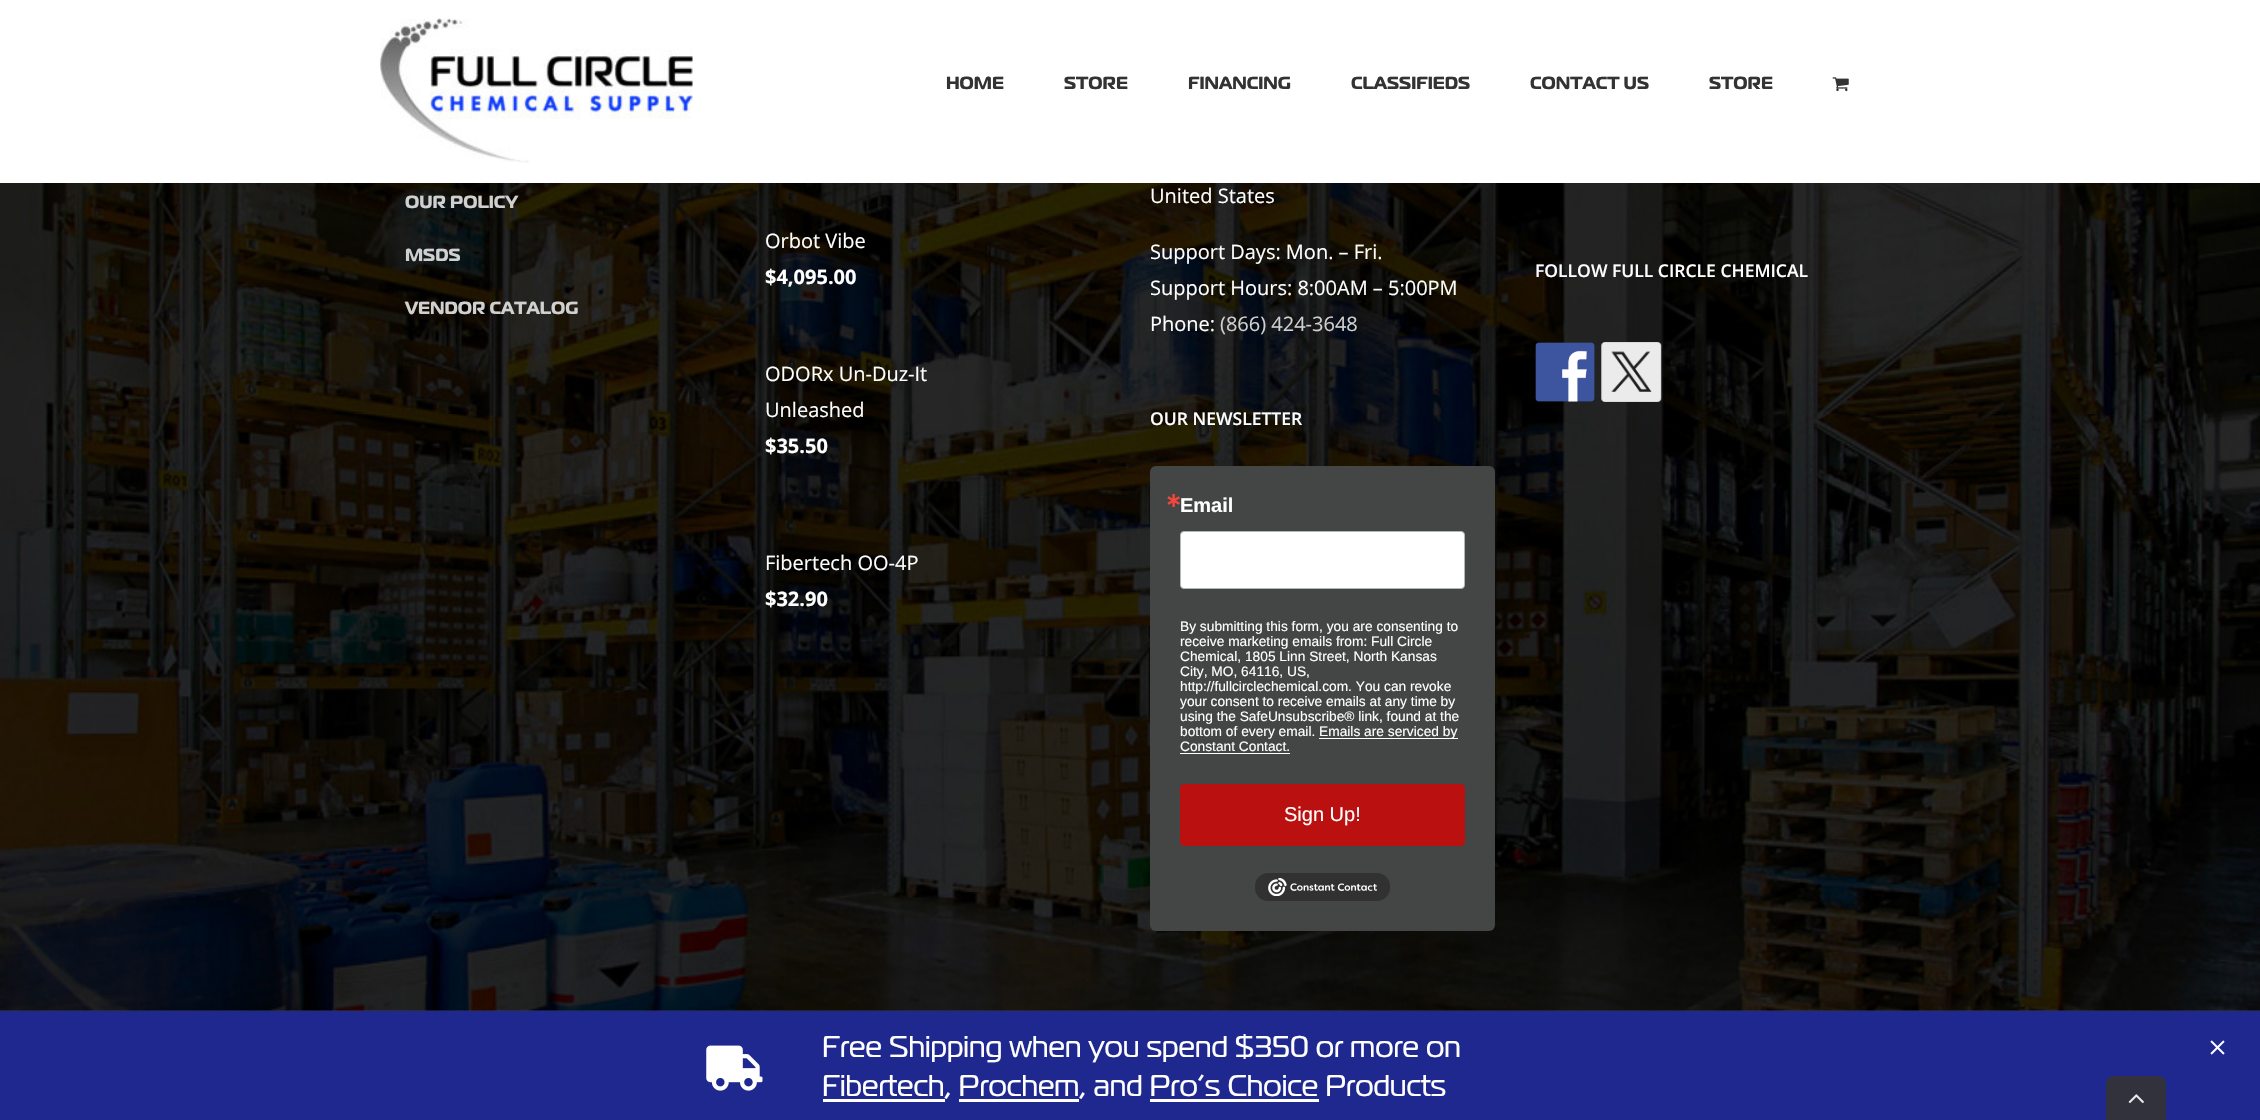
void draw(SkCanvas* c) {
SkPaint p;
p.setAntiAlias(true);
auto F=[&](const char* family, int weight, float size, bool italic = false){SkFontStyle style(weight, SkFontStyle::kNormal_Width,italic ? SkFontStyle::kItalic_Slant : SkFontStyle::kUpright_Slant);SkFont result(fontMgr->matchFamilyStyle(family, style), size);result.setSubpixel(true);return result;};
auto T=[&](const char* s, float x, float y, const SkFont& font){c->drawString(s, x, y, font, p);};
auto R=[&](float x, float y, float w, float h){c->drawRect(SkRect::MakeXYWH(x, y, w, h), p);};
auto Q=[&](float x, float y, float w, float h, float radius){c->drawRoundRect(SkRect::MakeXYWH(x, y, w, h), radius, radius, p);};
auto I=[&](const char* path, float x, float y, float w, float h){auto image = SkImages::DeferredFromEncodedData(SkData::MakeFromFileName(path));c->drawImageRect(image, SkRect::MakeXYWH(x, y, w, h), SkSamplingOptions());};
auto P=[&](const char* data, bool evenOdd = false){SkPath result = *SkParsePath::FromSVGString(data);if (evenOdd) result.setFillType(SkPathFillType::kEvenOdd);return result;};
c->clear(0xff444645);
p.setColor(0xffffffff);
R(0,0,2260,183);
I("1.png",380,18,313,145);
auto f1 = F("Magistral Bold",700,17.5);
p.setColor(0xff333333);
T("HOME",946,89,f1);
T("STORE",1064,89,f1);
T("FINANCING",1188,89,f1);
T("CLASSIFIEDS",1351,89,f1);
T("CONTACT US",1530,89,f1);
T("STORE",1709,89,f1);
I("2.png",1832,77,17,15);
I("3.png",0,183,2260,828);
p.setColor(0xffcfd0cf);
T("OUR POLICY",405,208,f1);
T("MSDS",405,261,f1);
T("VENDOR CATALOG",405,314,f1);
auto f2 = F("Open Sans",400,20);
p.setColor(0xffffffff);
T("Orbot Vibe",765,248,f2);
auto f3 = F("Open Sans",700,20);
T("$4,095.00",765,284,f3);
T("ODORx Un-Duz-It",765,381,f2);
T("Unleashed",765,417,f2);
T("$35.50",765,453,f3);
T("Fibertech OO-4P",765,570,f2);
T("$32.90",765,606,f3);
T("United States",1150,203,f2);
T("Support Days: Mon. – Fri.",1150,259,f2);
T("Support Hours: 8:00AM – 5:00PM",1150,295,f2);
T("Phone:",1150,331,f2);
p.setColor(0xffcfd0cf);
T("(866) 424-3648",1220,331,f2);
auto f4 = F("Open Sans",600,17.5);
p.setColor(0xffffffff);
T("OUR NEWSLETTER",1150,425,f4);
p.setColor(0xff444645);
Q(1150,466,345,465,6);
auto f5 = F("DejaVu Sans",700,20);
p.setColor(0xfff5463b);
T("∗",1165,507,f5);
auto f6 = F("Liberation Sans",700,20);
p.setColor(0xffffffff);
T("Email",1180,512,f6);
c->drawRoundRect(SkRect::MakeXYWH(1180.5,531.5,284,57),3.5,3.5,p);
p.setStroke(true);
p.setStrokeWidth(1);
p.setColor(0xffb0b6bb);
c->drawRoundRect(SkRect::MakeXYWH(1180.5,531.5,284,57),3.5,3.5,p);
auto f7 = F("Liberation Sans",400,13.75);
p.setStroke(false);
p.setColor(0xffffffff);
T("By submitting this form, you are consenting to",1180,631,f7);
T("receive marketing emails from: Full Circle",1180,646,f7);
T("Chemical, 1805 Linn Street, North Kansas",1180,661,f7);
T("City, MO, 64116, US,",1180,676,f7);
T("http://fullcirclechemical.com. You can revoke",1180,691,f7);
T("your consent to receive emails at any time by",1180,706,f7);
T("using the SafeUnsubscribe® link, found at the",1180,721,f7);
T("bottom of every email.",1180,736,f7);
R(1319,738,139,1);
T("Emails are serviced by",1319,736,f7);
T("Constant Contact.",1180,751,f7);
R(1180,753,110,1);
p.setColor(0xffbb1010);
c->drawRoundRect(SkRect::MakeXYWH(1180.5,784.5,284,61),3.5,3.5,p);
p.setStroke(true);
c->drawRoundRect(SkRect::MakeXYWH(1180.5,784.5,284,61),3.5,3.5,p);
auto f8 = F("Liberation Sans",400,20);
p.setStroke(false);
p.setColor(0xffffffff);
T("Sign Up!",1284,821,f8);
p.setColor(0xff303130);
Q(1255,873,135,28,13);
I("4.png",1268,878,109,18);
p.setColor(0xffffffff);
T("FOLLOW FULL CIRCLE CHEMICAL",1535,277,f4);
I("5.png",1535,342,60,60);
I("6.png",1601,342,61,60);
p.setColor(0xff1e288f);
R(0,1011,2260,109);
I("7.png",706,1045,57,46);
auto f9 = F("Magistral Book",400,30);
p.setColor(0xffffffff);
T("Free Shipping when you spend $350 or more on",822,1057,f9);
T("Fibertech, Prochem, and Pro’s Choice Products",822,1096,f9);
R(823,1099,122,3);
R(959,1099,120,3);
R(1150,1099,169,3);
I("8.png",2210,1040,15,15);
p.setColor(0xff31323c);
c->drawPath(P("M2114 1076h44c4.5 0 8 3.5 8 8v36h-60v-36c0-4.5 3.5-8 8-8z"),p);
I("9.png",2128,1094,16,10);
}
